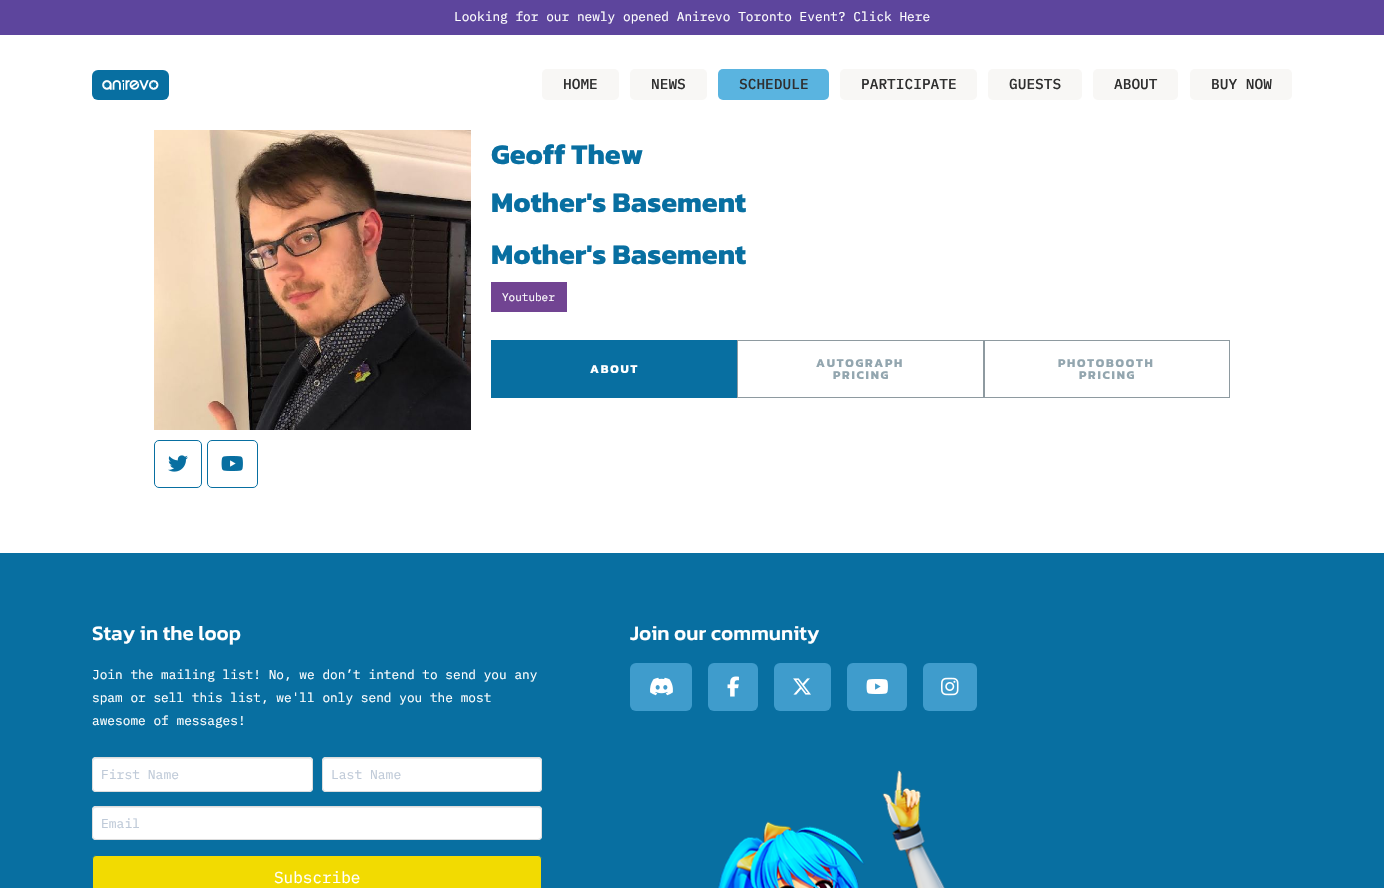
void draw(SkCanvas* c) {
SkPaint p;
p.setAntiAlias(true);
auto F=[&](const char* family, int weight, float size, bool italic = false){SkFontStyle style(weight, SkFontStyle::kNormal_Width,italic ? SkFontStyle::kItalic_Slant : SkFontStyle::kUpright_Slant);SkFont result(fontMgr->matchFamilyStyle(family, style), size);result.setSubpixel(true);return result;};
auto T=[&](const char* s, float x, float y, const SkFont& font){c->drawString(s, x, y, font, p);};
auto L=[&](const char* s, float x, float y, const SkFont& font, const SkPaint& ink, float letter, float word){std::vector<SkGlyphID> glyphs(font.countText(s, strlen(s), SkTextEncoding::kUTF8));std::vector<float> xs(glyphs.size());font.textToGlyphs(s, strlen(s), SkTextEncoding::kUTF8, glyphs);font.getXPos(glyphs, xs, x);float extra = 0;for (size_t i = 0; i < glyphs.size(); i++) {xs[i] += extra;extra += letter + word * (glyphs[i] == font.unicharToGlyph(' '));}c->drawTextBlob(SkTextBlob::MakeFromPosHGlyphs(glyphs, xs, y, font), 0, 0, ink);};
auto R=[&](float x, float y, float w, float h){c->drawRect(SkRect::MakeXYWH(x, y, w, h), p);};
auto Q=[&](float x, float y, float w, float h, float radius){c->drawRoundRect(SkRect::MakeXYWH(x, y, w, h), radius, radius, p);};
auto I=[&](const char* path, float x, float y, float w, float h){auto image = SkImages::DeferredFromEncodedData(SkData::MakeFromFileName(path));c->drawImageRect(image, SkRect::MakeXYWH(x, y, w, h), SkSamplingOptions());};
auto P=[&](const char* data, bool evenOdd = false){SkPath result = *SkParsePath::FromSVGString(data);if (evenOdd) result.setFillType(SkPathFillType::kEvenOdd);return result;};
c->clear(0xffffffff);
p.setColor(0xff5d459d);
R(0,0,1384,35);
auto f1 = F("IBM Plex Mono",400,12.8);
p.setColor(0xffffffff);
T("Looking for our newly opened Anirevo Toronto Event? Click Here",454,21,f1);
p.setColor(0xff086fa1);
Q(92,70,77,30,6);
I("1.png",102,80,57,10);
p.setColor(0xfff8f7f5);
Q(542,69,77,31,5);
auto f2 = F("IBM Plex Mono",500,14.5);
p.setColor(0xff2f2f2f);
T("HOME",563,89,f2);
p.setColor(0xfff8f7f5);
Q(630,69,77,31,5);
p.setColor(0xff2f2f2f);
T("NEWS",651,89,f2);
p.setColor(0xff5ab4e0);
Q(718,69,111,31,5);
p.setColor(0xff2f2f2f);
T("SCHEDULE",739,89,f2);
p.setColor(0xfff8f7f5);
Q(840,69,137,31,5);
p.setColor(0xff2f2f2f);
T("PARTICIPATE",861,89,f2);
p.setColor(0xfff8f7f5);
Q(988,69,94,31,5);
p.setColor(0xff2f2f2f);
T("GUESTS",1009,89,f2);
p.setColor(0xfff8f7f5);
Q(1093,69,85,31,5);
p.setColor(0xff2f2f2f);
T("ABOUT",1114,89,f2);
p.setColor(0xfff8f7f5);
Q(1190,69,102,31,5);
p.setColor(0xff2f2f2f);
T("BUY NOW",1211,89,f2);
I("2.png",154,130,317,300);
auto f3 = F("Kanit",700,28.75);
p.setColor(0xff086fa1);
T("Geoff Thew",491,164,f3);
T("Mother's Basement",491,212,f3);
T("Mother's Basement",491,264,f3);
p.setColor(0xff714492);
R(491,282,76,30);
auto f4 = F("IBM Plex Mono",400,11);
p.setColor(0xffffffff);
T("Youtuber",502,301,f4);
p.setColor(0xff086fa1);
R(491,340,246,58);
auto f5 = F("Kanit",700,12);
p.setColor(0xffffffff);
L("ABOUT",590,373,f5,p,1.75,0);
p.setStroke(true);
p.setStrokeWidth(1);
p.setColor(0xff8e9aa0);
c->drawRect(SkRect::MakeXYWH(737.5,340.5,246,57),p);
p.setStroke(false);
p.setColor(0xff93a6af);
L("AUTOGRAPH",816,367,f5,p,1.75,0);
L("PRICING",833,379,f5,p,1.75,0);
p.setStroke(true);
p.setColor(0xff8e9aa0);
c->drawRect(SkRect::MakeXYWH(984.5,340.5,245,57),p);
p.setStroke(false);
p.setColor(0xff93a6af);
L("PHOTOBOOTH",1058,367,f5,p,1.75,0);
L("PRICING",1079,379,f5,p,1.75,0);
p.setStroke(true);
p.setColor(0xff086fa1);
c->drawRoundRect(SkRect::MakeXYWH(154.5,440.5,47,47),4.5,4.5,p);
I("3.png",168,455,20,17);
c->drawRoundRect(SkRect::MakeXYWH(207.5,440.5,50,47),4.5,4.5,p);
I("4.png",221,456,22,15);
p.setStroke(false);
R(0,553,1384,335);
auto f6 = F("Kanit",500,20.75);
p.setColor(0xffffffff);
T("Stay in the loop",92,640,f6);
T("Join the mailing list! No, we don’t intend to send you any",92,679,f1);
T("spam or sell this list, we'll only send you the most",92,702,f1);
T("awesome of messages!",92,725,f1);
Q(92,757,221,35,4);
p.setColor(0xffececec);
c->drawPath(P("M96 759h213c2 0 3 1 3 3v-1c0-2-1-3-3-3h-213c-2 0-3 1-3 3v1c0-2 1-3 3-3z"),p);
p.setStroke(true);
p.setColor(0xffdddddd);
c->drawRoundRect(SkRect::MakeXYWH(92.5,757.5,220,34),3.5,3.5,p);
auto f7 = F("IBM Plex Mono",400,13);
p.setStroke(false);
p.setColor(0xffbfcad8);
T("First Name",101,779,f7);
p.setColor(0xffffffff);
Q(322,757,220,35,4);
p.setColor(0xffececec);
c->drawPath(P("M326 759h212c2 0 3 1 3 3v-1c0-2-1-3-3-3h-212c-2 0-3 1-3 3v1c0-2 1-3 3-3z"),p);
p.setStroke(true);
p.setColor(0xffdddddd);
c->drawRoundRect(SkRect::MakeXYWH(322.5,757.5,219,34),3.5,3.5,p);
p.setStroke(false);
p.setColor(0xffbfcad8);
T("Last Name",331,779,f7);
p.setColor(0xffffffff);
Q(92,806,450,34,4);
p.setColor(0xffececec);
c->drawPath(P("M96 808h442c2 0 3 1 3 3c0-2-1-4-3-4h-443l-2 2v2c0-2 1-3 3-3z"),p);
p.setStroke(true);
p.setColor(0xffdddddd);
c->drawRoundRect(SkRect::MakeXYWH(92.5,806.5,449,33),3.5,3.5,p);
p.setStroke(false);
p.setColor(0xffbfcad8);
T("Email",101,828,f7);
p.setColor(0xfff2db01);
c->drawRoundRect(SkRect::MakeXYWH(92.5,855.5,449,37),3.5,3.5,p);
p.setStroke(true);
p.setColor(0xff086fa1);
c->drawRoundRect(SkRect::MakeXYWH(92.5,855.5,449,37),3.5,3.5,p);
auto f8 = F("IBM Plex Mono",400,16);
p.setStroke(false);
p.setColor(0xffffffff);
T("Subscribe",274,883,f8);
T("Join our community",630,640,f6);
p.setColor(0xff3f9ccc);
Q(630,663,62,48,6);
I("5.png",650,677,23,19);
Q(708,663,50,48,6);
I("6.png",727,676,12,21);
Q(774,663,57,48,6);
I("7.png",793,678,18,17);
Q(847,663,60,48,6);
I("8.png",866,679,22,15);
Q(923,663,54,48,6);
I("9.png",941,677,18,19);
I("10.png",717,770,228,118);
}
